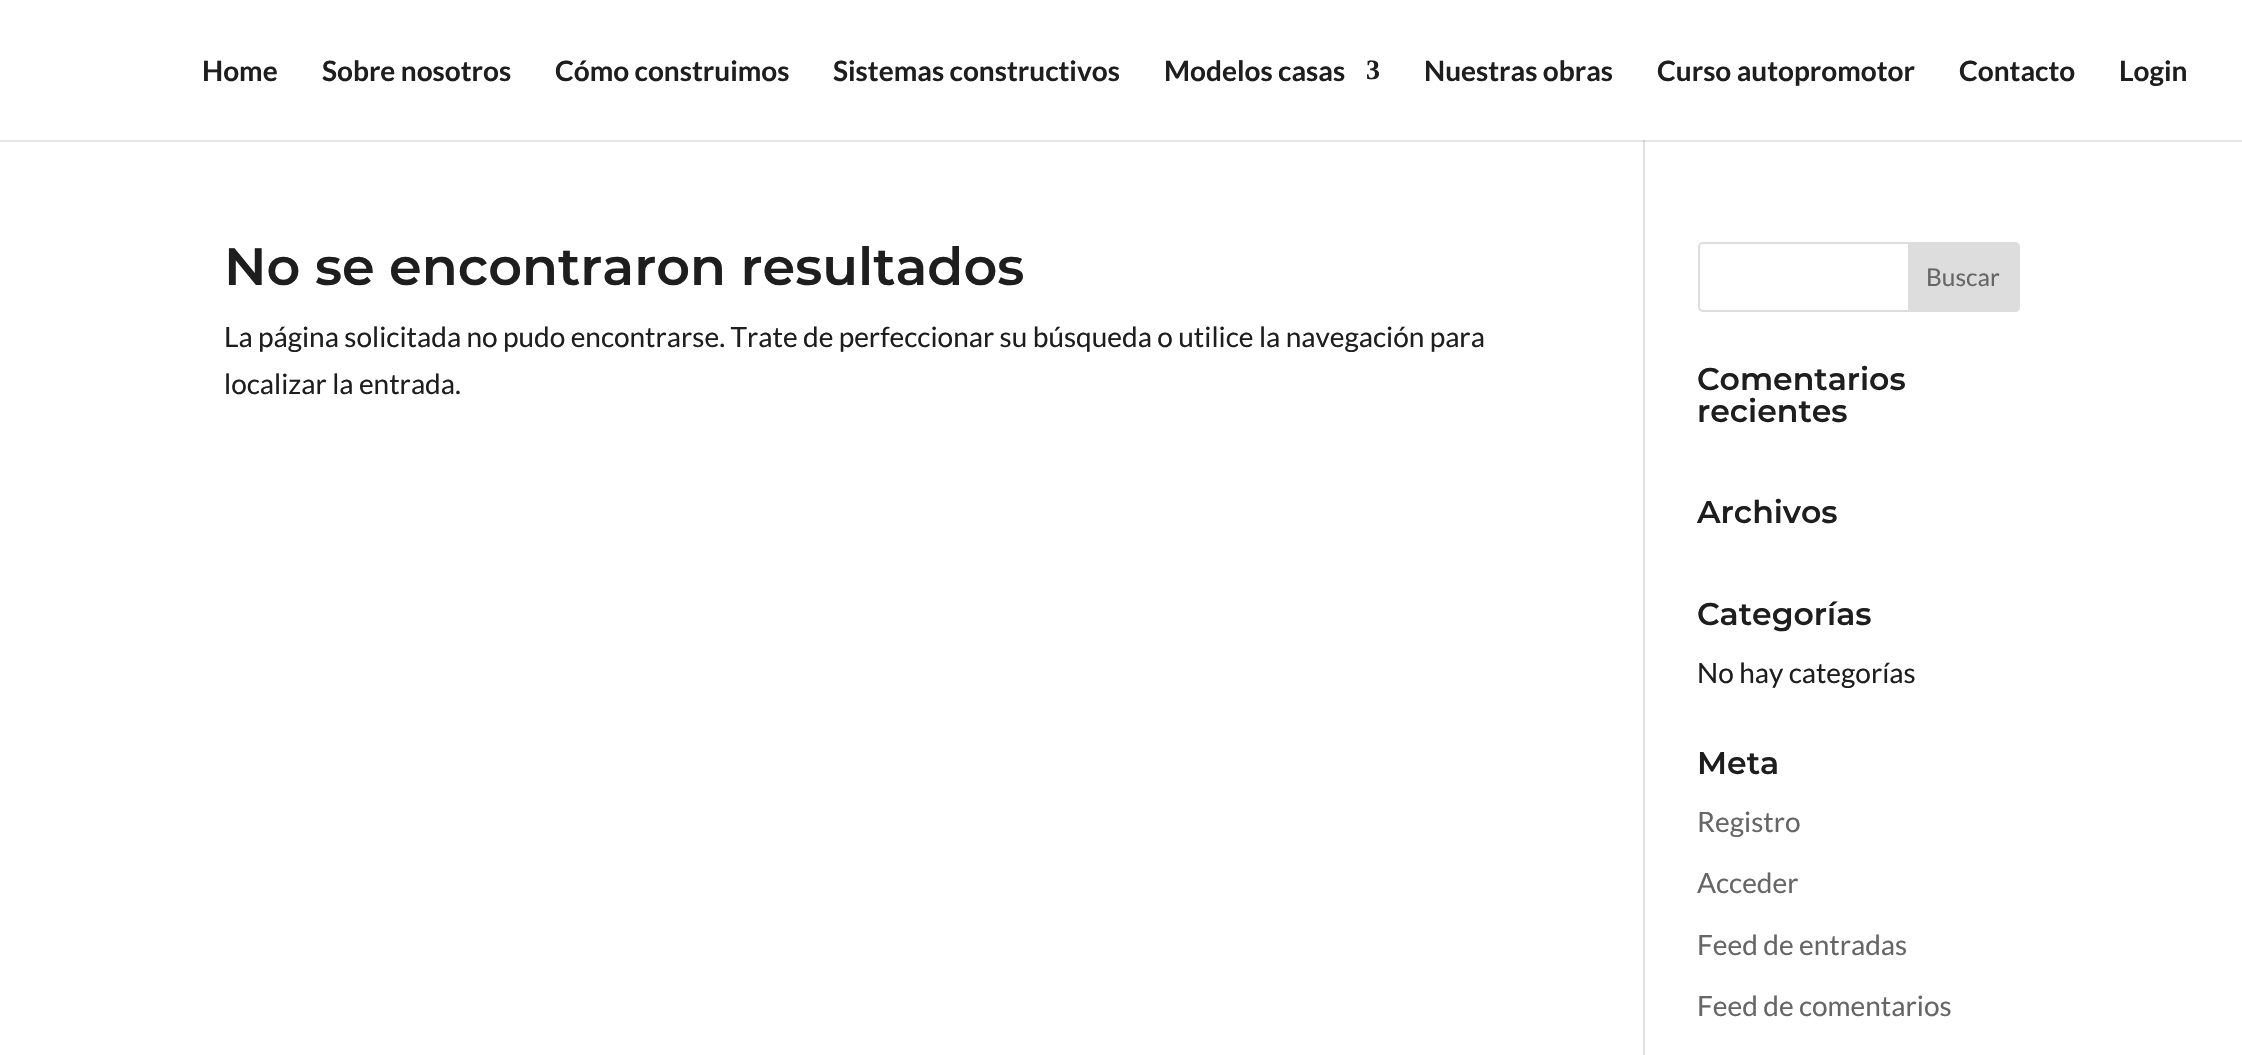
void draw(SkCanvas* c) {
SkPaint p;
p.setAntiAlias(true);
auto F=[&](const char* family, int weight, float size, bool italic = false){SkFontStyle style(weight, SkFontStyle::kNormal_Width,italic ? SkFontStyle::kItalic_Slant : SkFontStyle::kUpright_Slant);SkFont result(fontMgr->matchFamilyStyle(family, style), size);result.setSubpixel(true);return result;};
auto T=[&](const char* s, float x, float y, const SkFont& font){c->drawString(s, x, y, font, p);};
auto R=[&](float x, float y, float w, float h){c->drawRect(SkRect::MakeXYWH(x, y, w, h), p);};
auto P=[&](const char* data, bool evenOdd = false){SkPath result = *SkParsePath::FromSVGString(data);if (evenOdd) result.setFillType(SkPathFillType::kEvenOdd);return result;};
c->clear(0xffffffff);
p.setColor(0xffe2e2e2);
R(1643,140,2,915);
p.setColor(0x1a000000);
c->drawPath(P("M0 140v2h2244v-140v138z"),p);
auto f1 = F("Lato",700,28);
p.setColor(0xff1e1e1e);
T("Home",202,81,f1);
T("Sobre nosotros",322,81,f1);
T("Cómo construimos",555,81,f1);
T("Sistemas constructivos",833,81,f1);
T("Modelos casas",1164,81,f1);
auto f2 = F("Liberation Serif",700,28);
T("3",1366,79,f2);
T("Nuestras obras",1424,81,f1);
T("Curso autopromotor",1657,81,f1);
T("Contacto",1959,81,f1);
T("Login",2119,81,f1);
auto f3 = F("Montserrat",600,52.5);
T("No se encontraron resultados",224,285,f3);
auto f4 = F("Lato",400,28);
T("La página solicitada no pudo encontrarse. Trate de perfeccionar su búsqueda o utilice la navegación para",224,347,f4);
T("localizar la entrada.",224,394,f4);
p.setStroke(true);
p.setStrokeWidth(2);
p.setColor(0xffdddddd);
c->drawRoundRect(SkRect::MakeXYWH(1699,243,320,68),4,4,p);
p.setStroke(false);
c->drawPath(P("M1909 243h106c2 0 4 2 4 4v60c0 2-2 4-4 4h-106z"),p);
p.setStroke(true);
c->drawPath(P("M1909 243h106c2 0 4 2 4 4v60c0 2-2 4-4 4h-106z"),p);
auto f5 = F("Lato",400,24.5);
p.setStroke(false);
p.setColor(0xff666666);
T("Buscar",1926,286,f5);
auto f6 = F("Montserrat",600,31.5);
p.setColor(0xff1e1e1e);
T("Comentarios",1697,390,f6);
T("recientes",1697,422,f6);
T("Archivos",1697,523,f6);
T("Categorías",1697,625,f6);
T("No hay categorías",1697,683,f4);
T("Meta",1697,774,f6);
p.setColor(0xff666666);
T("Registro",1697,832,f4);
T("Acceder",1697,893,f4);
T("Feed de entradas",1697,955,f4);
T("Feed de comentarios",1697,1016,f4);
}
